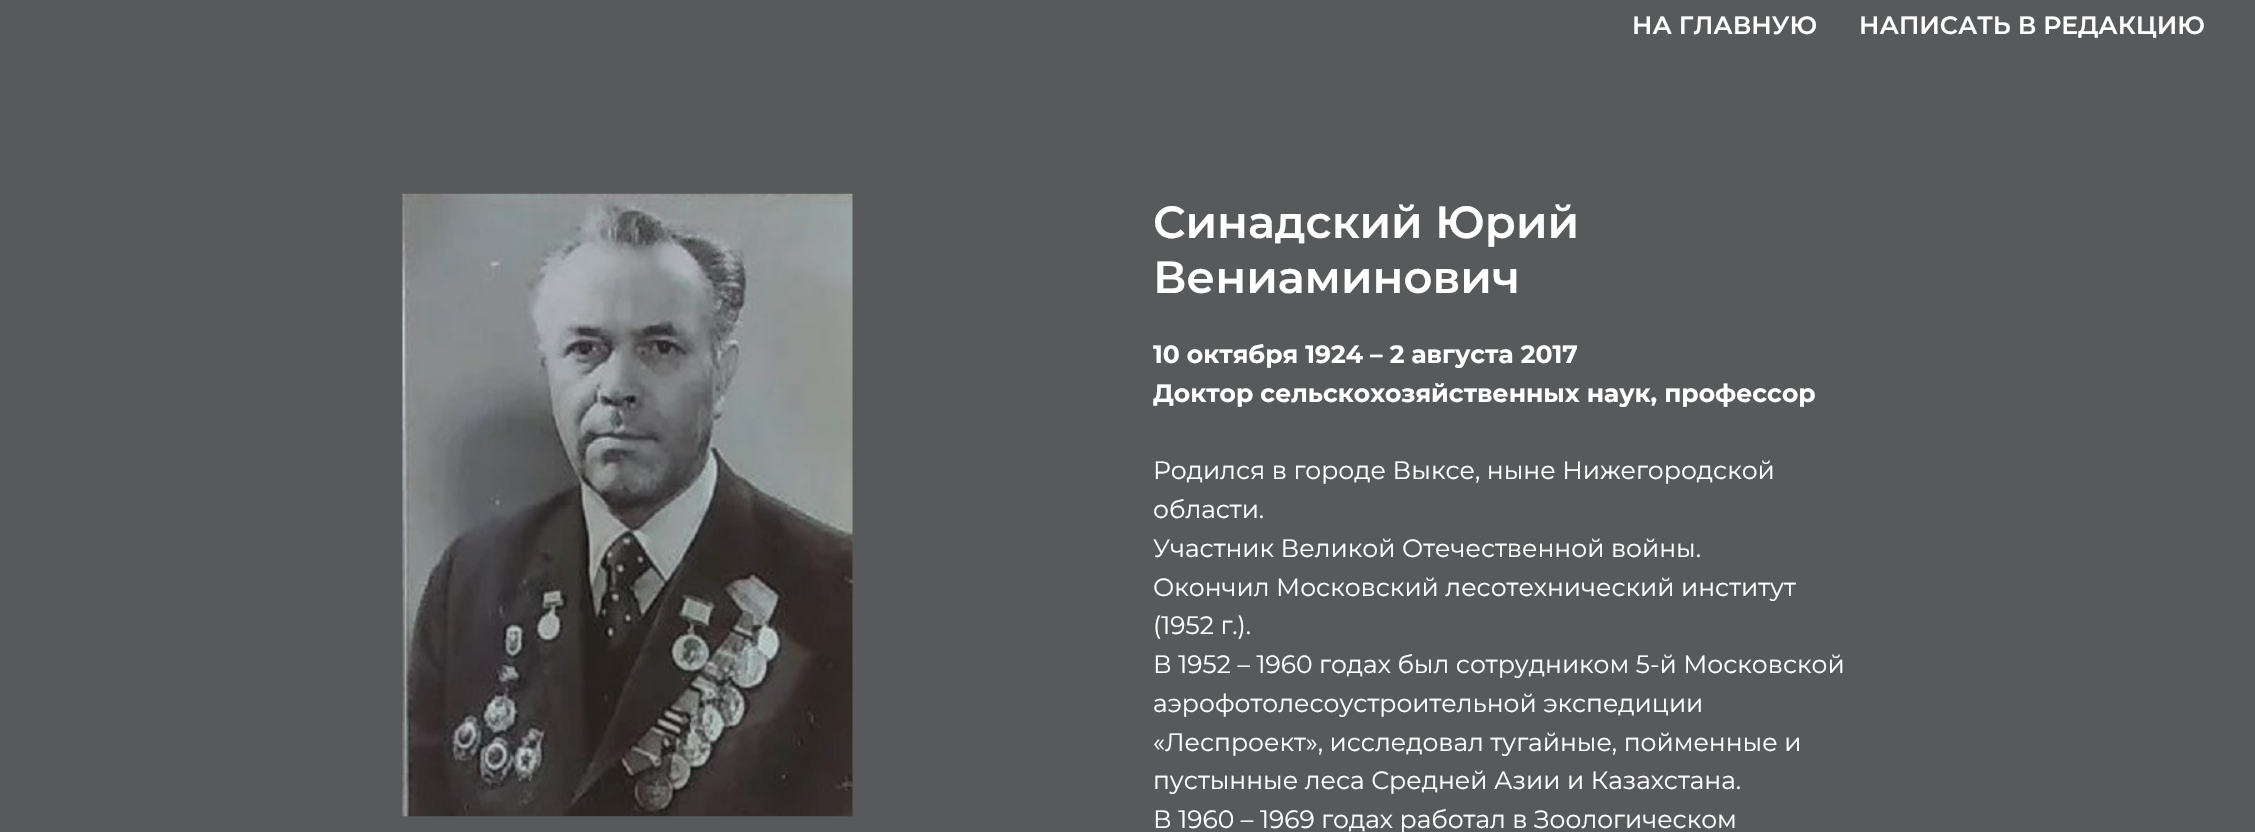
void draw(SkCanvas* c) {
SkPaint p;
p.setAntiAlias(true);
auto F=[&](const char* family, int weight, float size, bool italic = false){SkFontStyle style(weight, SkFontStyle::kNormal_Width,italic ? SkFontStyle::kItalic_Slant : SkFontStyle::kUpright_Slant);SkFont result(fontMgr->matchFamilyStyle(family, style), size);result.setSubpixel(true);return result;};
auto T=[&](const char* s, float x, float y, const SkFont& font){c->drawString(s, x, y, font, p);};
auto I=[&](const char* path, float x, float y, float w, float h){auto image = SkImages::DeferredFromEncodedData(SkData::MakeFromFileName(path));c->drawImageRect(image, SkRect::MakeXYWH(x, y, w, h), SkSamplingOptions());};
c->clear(0xff58595b);
auto f1 = F("Montserrat",600,25);
p.setColor(0xffffffff);
T("НА ГЛАВНУЮ",1632,34,f1);
T("НАПИСАТЬ В РЕДАКЦИЮ",1859,34,f1);
I("1.png",402,193,451,624);
auto f2 = F("Montserrat",600,45);
T("Синадский Юрий",1153,238,f2);
T("Вениаминович",1153,293,f2);
auto f3 = F("Montserrat",700,25);
T("10 октября 1924 – 2 августа 2017",1153,363,f3);
T("Доктор сельскохозяйственных наук, профессор",1153,402,f3);
auto f4 = F("Montserrat",400,25);
T("Родился в городе Выксе, ныне Нижегородской",1153,479,f4);
T("области.",1153,518,f4);
T("Участник Великой Отечественной войны.",1153,557,f4);
T("Окончил Московский лесотехнический институт",1153,596,f4);
T("(1952 г.).",1153,634,f4);
T("В 1952 – 1960 годах был сотрудником 5-й Московской",1153,673,f4);
T("аэрофотолесоустроительной экспедиции",1153,712,f4);
T("«Леспроект», исследовал тугайные, пойменные и",1153,751,f4);
T("пустынные леса Средней Азии и Казахстана.",1153,789,f4);
T("В 1960 – 1969 годах работал в Зоологическом",1153,828,f4);
}
